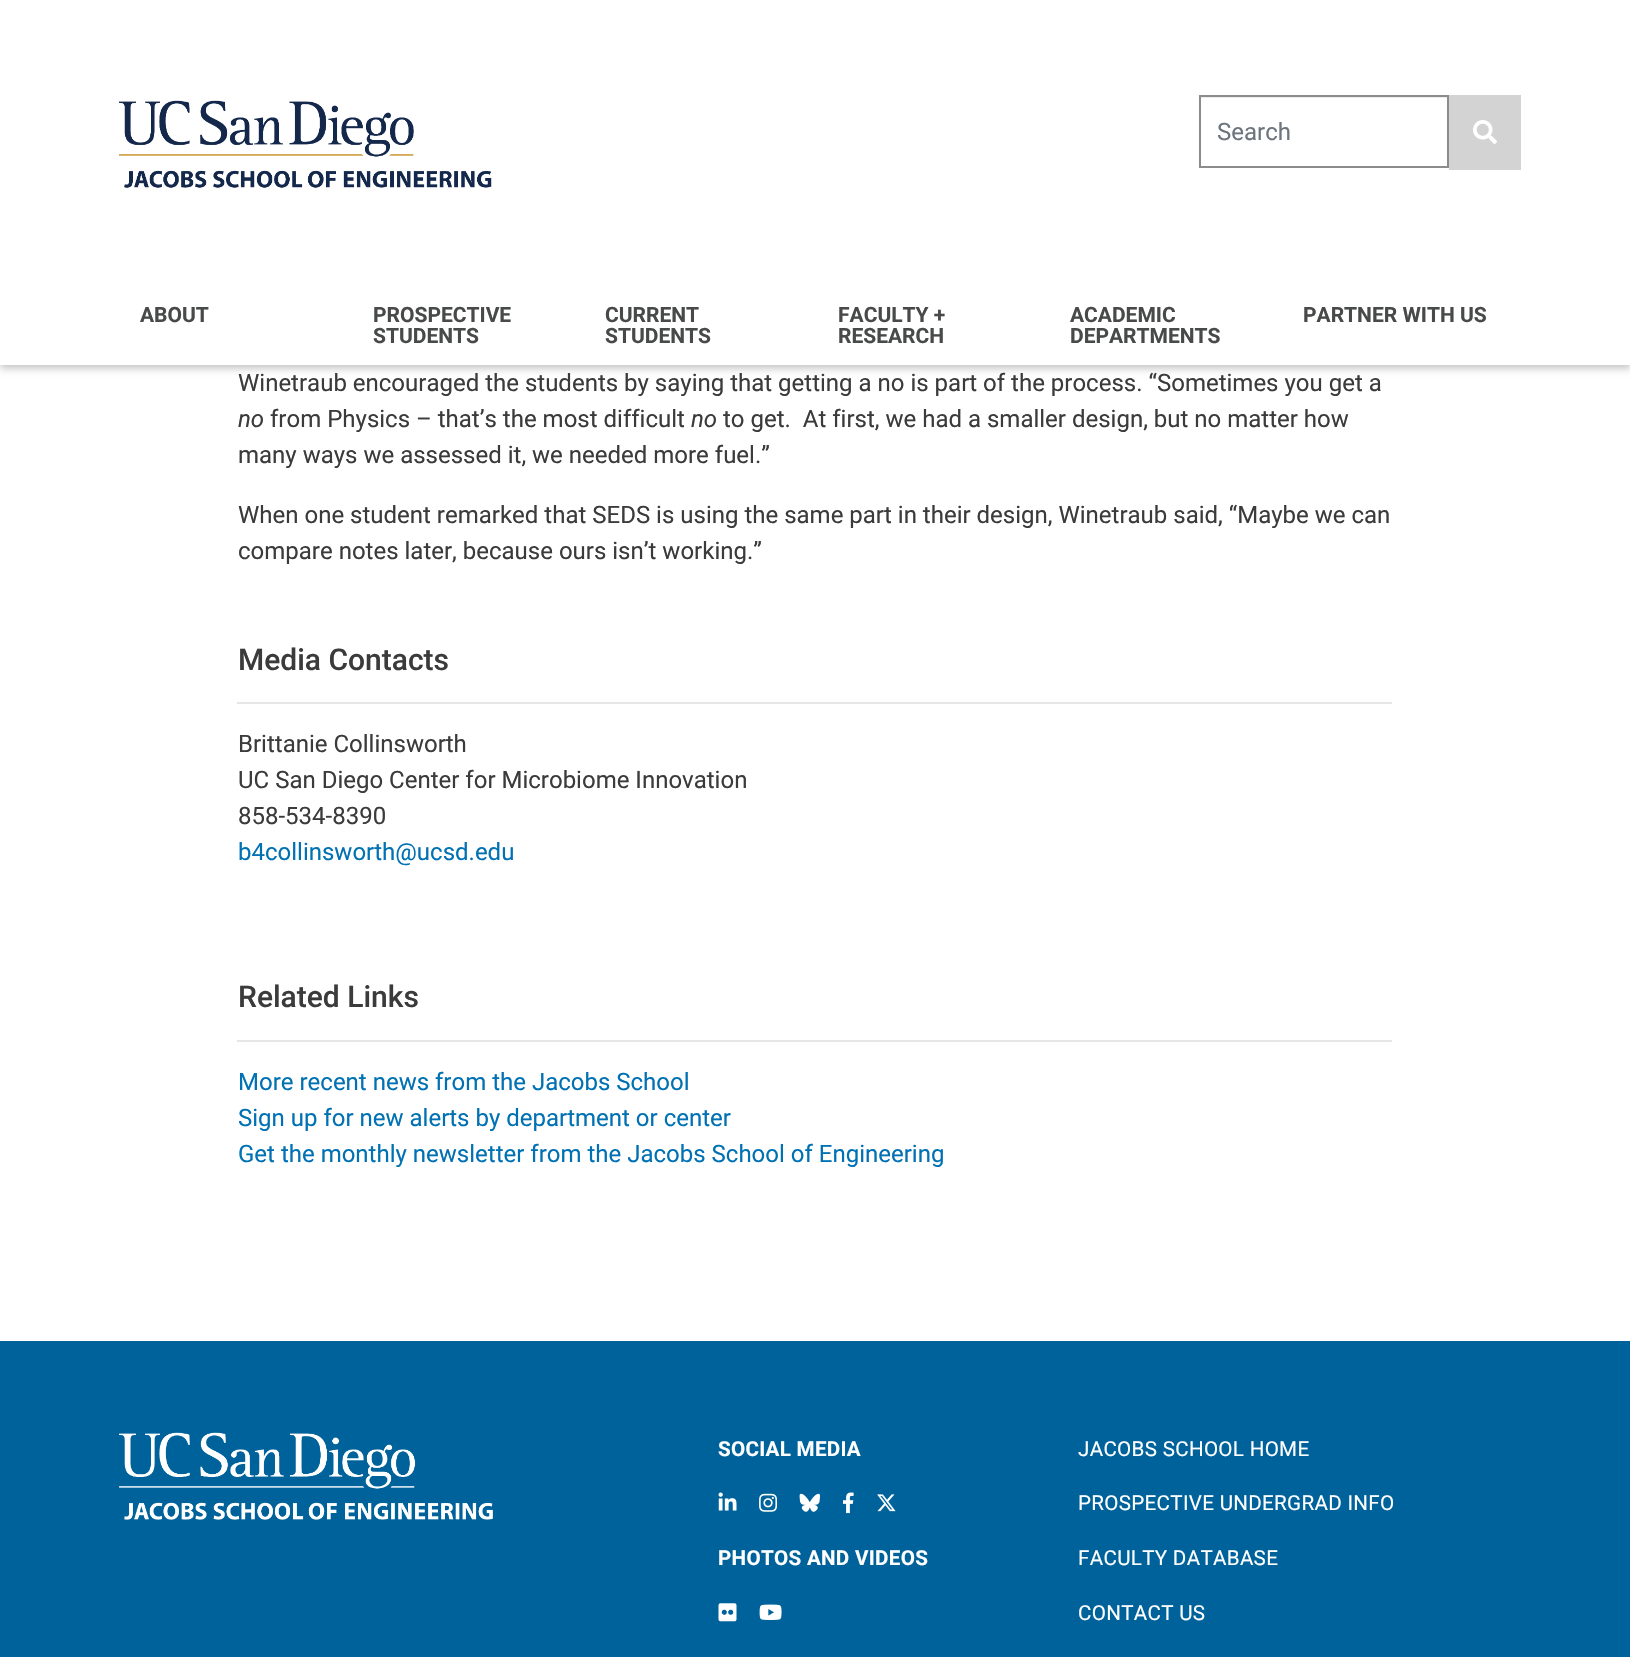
void draw(SkCanvas* c) {
SkPaint p;
p.setAntiAlias(true);
auto F=[&](const char* family, int weight, float size, bool italic = false){SkFontStyle style(weight, SkFontStyle::kNormal_Width,italic ? SkFontStyle::kItalic_Slant : SkFontStyle::kUpright_Slant);SkFont result(fontMgr->matchFamilyStyle(family, style), size);result.setSubpixel(true);return result;};
auto T=[&](const char* s, float x, float y, const SkFont& font){c->drawString(s, x, y, font, p);};
auto L=[&](const char* s, float x, float y, const SkFont& font, const SkPaint& ink, float letter, float word){std::vector<SkGlyphID> glyphs(font.countText(s, strlen(s), SkTextEncoding::kUTF8));std::vector<float> xs(glyphs.size());font.textToGlyphs(s, strlen(s), SkTextEncoding::kUTF8, glyphs);font.getXPos(glyphs, xs, x);float extra = 0;for (size_t i = 0; i < glyphs.size(); i++) {xs[i] += extra;extra += letter + word * (glyphs[i] == font.unicharToGlyph(' '));}c->drawTextBlob(SkTextBlob::MakeFromPosHGlyphs(glyphs, xs, y, font), 0, 0, ink);};
auto R=[&](float x, float y, float w, float h){c->drawRect(SkRect::MakeXYWH(x, y, w, h), p);};
auto I=[&](const char* path, float x, float y, float w, float h){auto image = SkImages::DeferredFromEncodedData(SkData::MakeFromFileName(path));c->drawImageRect(image, SkRect::MakeXYWH(x, y, w, h), SkSamplingOptions());};
c->clear(0xffffffff);
p.setColor(0x40000000);
p.setMaskFilter(SkMaskFilter::MakeBlur(kNormal_SkBlurStyle, 4));
c->drawRect(SkRect::MakeXYWH(0,3,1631,365),p);
p.setMaskFilter(nullptr);
p.setColor(0xffffffff);
R(0,0,1630,365);
I("1.png",119,100,373,88);
p.setColor(0xffececec);
R(1200,97,248,1);
p.setStroke(true);
p.setStrokeWidth(2);
p.setColor(0xff8c8c8c);
c->drawRect(SkRect::MakeXYWH(1200,96,248,71),p);
auto f1 = F("Roboto",400,24);
p.setStroke(false);
p.setColor(0xff6c757d);
T("Search",1217,140,f1);
p.setColor(0xffd3d3d3);
R(1449,95,72,75);
I("2.png",1473,120,24,24);
auto f2 = F("Roboto",700,21);
p.setColor(0xff484949);
T("ABOUT",140,322,f2);
T("PROSPECTIVE",373,322,f2);
T("STUDENTS",373,343,f2);
T("CURRENT",605,322,f2);
T("STUDENTS",605,343,f2);
T("FACULTY +",838,322,f2);
T("RESEARCH",838,343,f2);
T("ACADEMIC",1070,322,f2);
T("DEPARTMENTS",1070,343,f2);
T("PARTNER WITH US",1303,322,f2);
p.setColor(0xff3b3b3b);
T("Winetraub encouraged the students by saying that getting a no is part of the process. “Sometimes you get a",238,391,f1);
auto f3 = F("Roboto",400,24,true);
T("no",238,427,f3);
T("from Physics – that’s the most difficult",270,427,f1);
T("no",691,427,f3);
T("to get.  At first, we had a smaller design, but no matter how",723,427,f1);
T("many ways we assessed it, we needed more fuel.”",238,463,f1);
T("When one student remarked that SEDS is using the same part in their design, Winetraub said, “Maybe we can",238,523,f1);
T("compare notes later, because ours isn’t working.”",238,559,f1);
auto f4 = F("Roboto",500,30);
T("Media Contacts",238,670,f4);
p.setColor(0xffe6e6e6);
R(237,702,1155,2);
p.setColor(0xff3b3b3b);
T("Brittanie Collinsworth",238,752,f1);
T("UC San Diego Center for Microbiome Innovation",238,788,f1);
T("858-534-8390",238,824,f1);
p.setColor(0xff0071b3);
T("b4collinsworth@ucsd.edu",238,860,f1);
p.setColor(0xff3b3b3b);
T("Related Links",238,1007,f4);
p.setColor(0xffe6e6e6);
R(237,1040,1155,2);
p.setColor(0xff0071b3);
T("More recent news from the Jacobs School",238,1090,f1);
T("Sign up for new alerts by department or center",238,1126,f1);
T("Get the monthly newsletter from the Jacobs School of Engineering",238,1162,f1);
p.setColor(0xff00629b);
R(0,1341,1630,316);
I("3.png",119,1432,374,88);
auto f5 = F("Roboto",700,20.6);
p.setColor(0xffffffff);
L("SOCIAL MEDIA",718,1456,f5,p,.3,0);
I("4.png",718,1492,19,19);
I("5.png",759,1493,19,19);
I("6.png",799,1493,21,19);
I("7.png",843,1492,11,22);
I("8.png",877,1494,19,18);
L("PHOTOS AND VIDEOS",718,1565,f5,p,.3,0);
I("9.png",718,1603,19,19);
I("10.png",759,1604,23,16);
auto f6 = F("Roboto",400,20.6);
L("JACOBS SCHOOL HOME",1078,1456,f6,p,.3,0);
L("PROSPECTIVE UNDERGRAD INFO",1078,1510,f6,p,.3,0);
L("FACULTY DATABASE",1078,1565,f6,p,.3,0);
L("CONTACT US",1078,1620,f6,p,.3,0);
}
